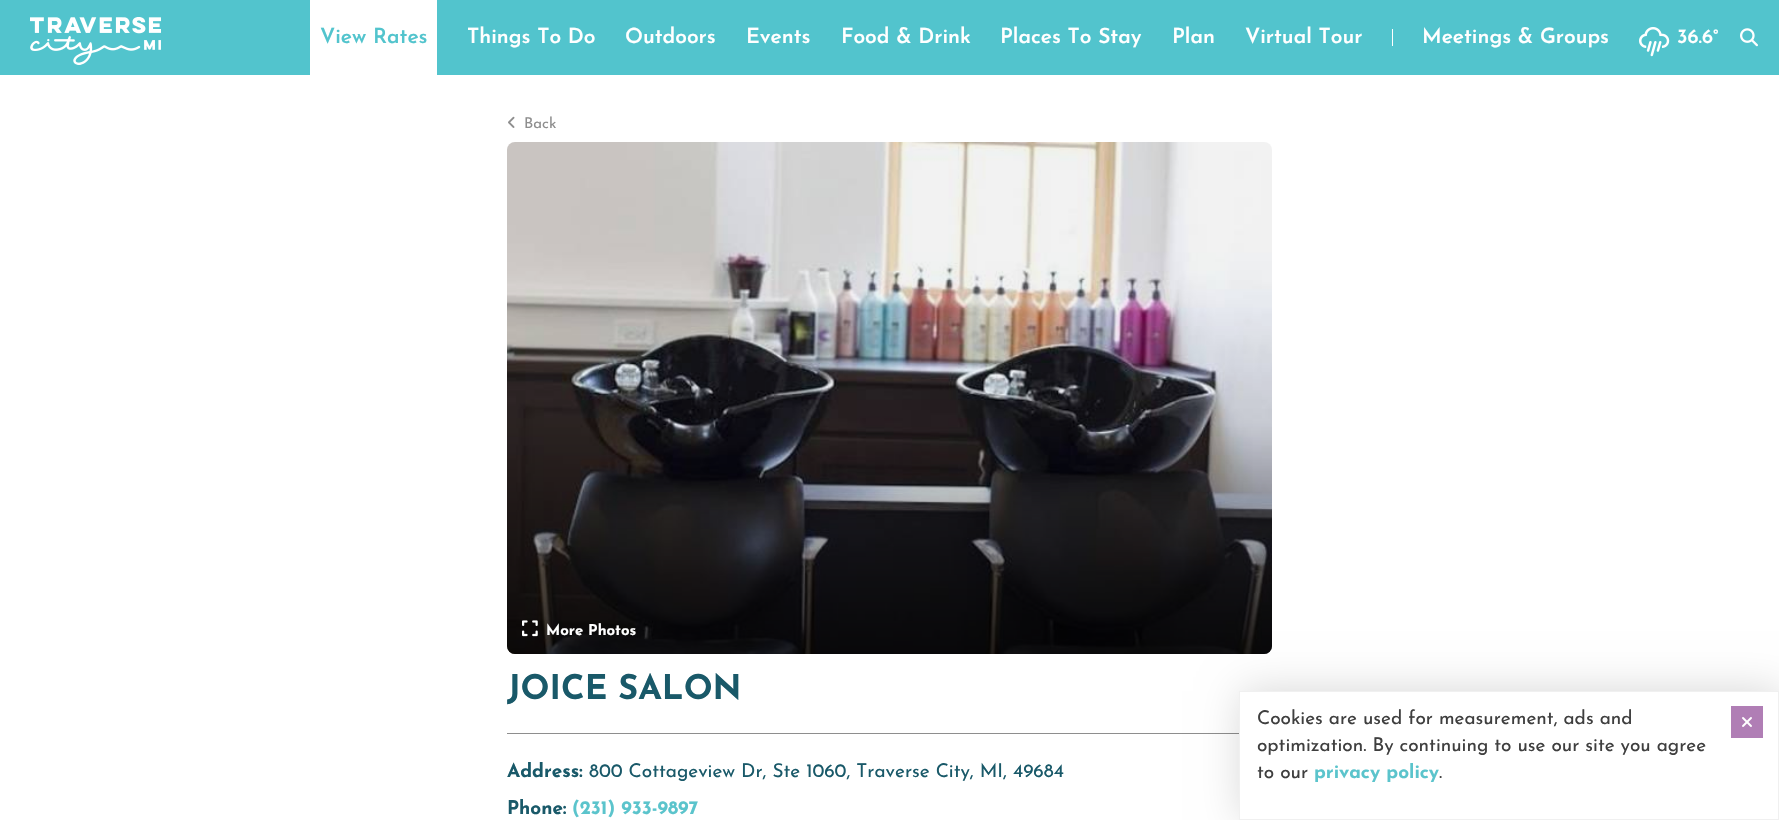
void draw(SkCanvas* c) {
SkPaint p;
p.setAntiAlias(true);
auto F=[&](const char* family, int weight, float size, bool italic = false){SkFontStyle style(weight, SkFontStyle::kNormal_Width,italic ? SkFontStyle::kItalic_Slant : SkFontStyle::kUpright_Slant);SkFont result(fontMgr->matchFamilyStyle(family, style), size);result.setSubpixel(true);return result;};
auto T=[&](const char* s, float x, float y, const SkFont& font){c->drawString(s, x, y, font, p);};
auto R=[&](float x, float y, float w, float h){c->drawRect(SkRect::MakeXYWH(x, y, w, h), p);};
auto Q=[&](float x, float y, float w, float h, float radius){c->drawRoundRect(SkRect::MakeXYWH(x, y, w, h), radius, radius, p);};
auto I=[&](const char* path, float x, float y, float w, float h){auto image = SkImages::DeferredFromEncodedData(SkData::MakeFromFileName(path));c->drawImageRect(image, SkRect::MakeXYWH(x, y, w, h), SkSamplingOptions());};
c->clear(0xffffffff);
p.setColor(0xff52c4cd);
R(0,0,1779,75);
I("1.png",30,17,131,48);
p.setColor(0xffffffff);
R(310,0,127,75);
auto f1 = F("Josefin Sans",600,21);
p.setColor(0xff52c4cd);
T("View Rates",320,43,f1);
p.setColor(0xffffffff);
T("Things To Do",467,43,f1);
T("Outdoors",625,43,f1);
T("Events",746,43,f1);
T("Food & Drink",841,43,f1);
T("Places To Stay",1000,43,f1);
T("Plan",1172,43,f1);
T("Virtual Tour",1245,43,f1);
R(1392,29,1,17);
T("Meetings & Groups",1422,43,f1);
I("2.png",1639,27,31,30);
auto f2 = F("Josefin Sans",600,20);
T("36.6°",1677,43,f2);
I("3.png",1740,28,18,19);
I("4.png",508,116,7,12);
auto f3 = F("Josefin Sans",400,15);
p.setColor(0xff8e8e8e);
T("Back",524,128,f3);
I("5.png",507,142,765,512);
{
const SkColor colors[] = {0xb3000000,0x0d000000};
const float stops[] = {0,.45};
const SkPoint ends[] = {{890,654}, {890,142}};
p.setShader(SkGradientShader::MakeLinear(ends, colors, stops, 2, SkTileMode::kClamp));
p.setAlpha(255);
}
Q(507,142,765,512,8);
I("6.png",522,620,16,17);
auto f4 = F("Josefin Sans",700,15);
p.setShader(nullptr);
p.setColor(0xffffffff);
T("More Photos",546,635,f4);
p.setColor(0xff8e8e8e);
R(507,733,732,1);
auto f5 = F("Josefin Sans",700,34);
p.setColor(0xff195969);
T("JOICE SALON",507,699,f5);
auto f6 = F("Josefin Sans",700,19);
T("Address:",507,777,f6);
auto f7 = F("Josefin Sans",400,19);
T("800 Cottageview Dr, Ste 1060, Traverse City, MI, 49684",589,777,f7);
T("Phone:",507,814,f6);
p.setColor(0xff5bc4cc);
T("(231) 933-9897",572,814,f6);
p.setColor(0x29000000);
p.setMaskFilter(SkMaskFilter::MakeBlur(kNormal_SkBlurStyle, 20));
c->drawRect(SkRect::MakeXYWH(1242,691,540,129),p);
p.setMaskFilter(nullptr);
p.setColor(0xffffffff);
c->drawRect(SkRect::MakeXYWH(1239.5,691.5,539,128),p);
p.setStroke(true);
p.setStrokeWidth(1);
p.setColor(0xfff0f0f0);
c->drawRect(SkRect::MakeXYWH(1239.5,691.5,539,128),p);
p.setStroke(false);
p.setColor(0xff3f3f3f);
T("Cookies are used for measurement, ads and",1257,724,f7);
T("optimization. By continuing to use our site you agree",1257,751,f7);
T("to our",1257,778,f7);
p.setColor(0xff5bc4cc);
T("privacy policy",1314,778,f6);
p.setColor(0xff3f3f3f);
T(".",1439,778,f7);
p.setColor(0xffb07eb5);
R(1731,706,32,32);
I("7.png",1742,717,10,10);
}
